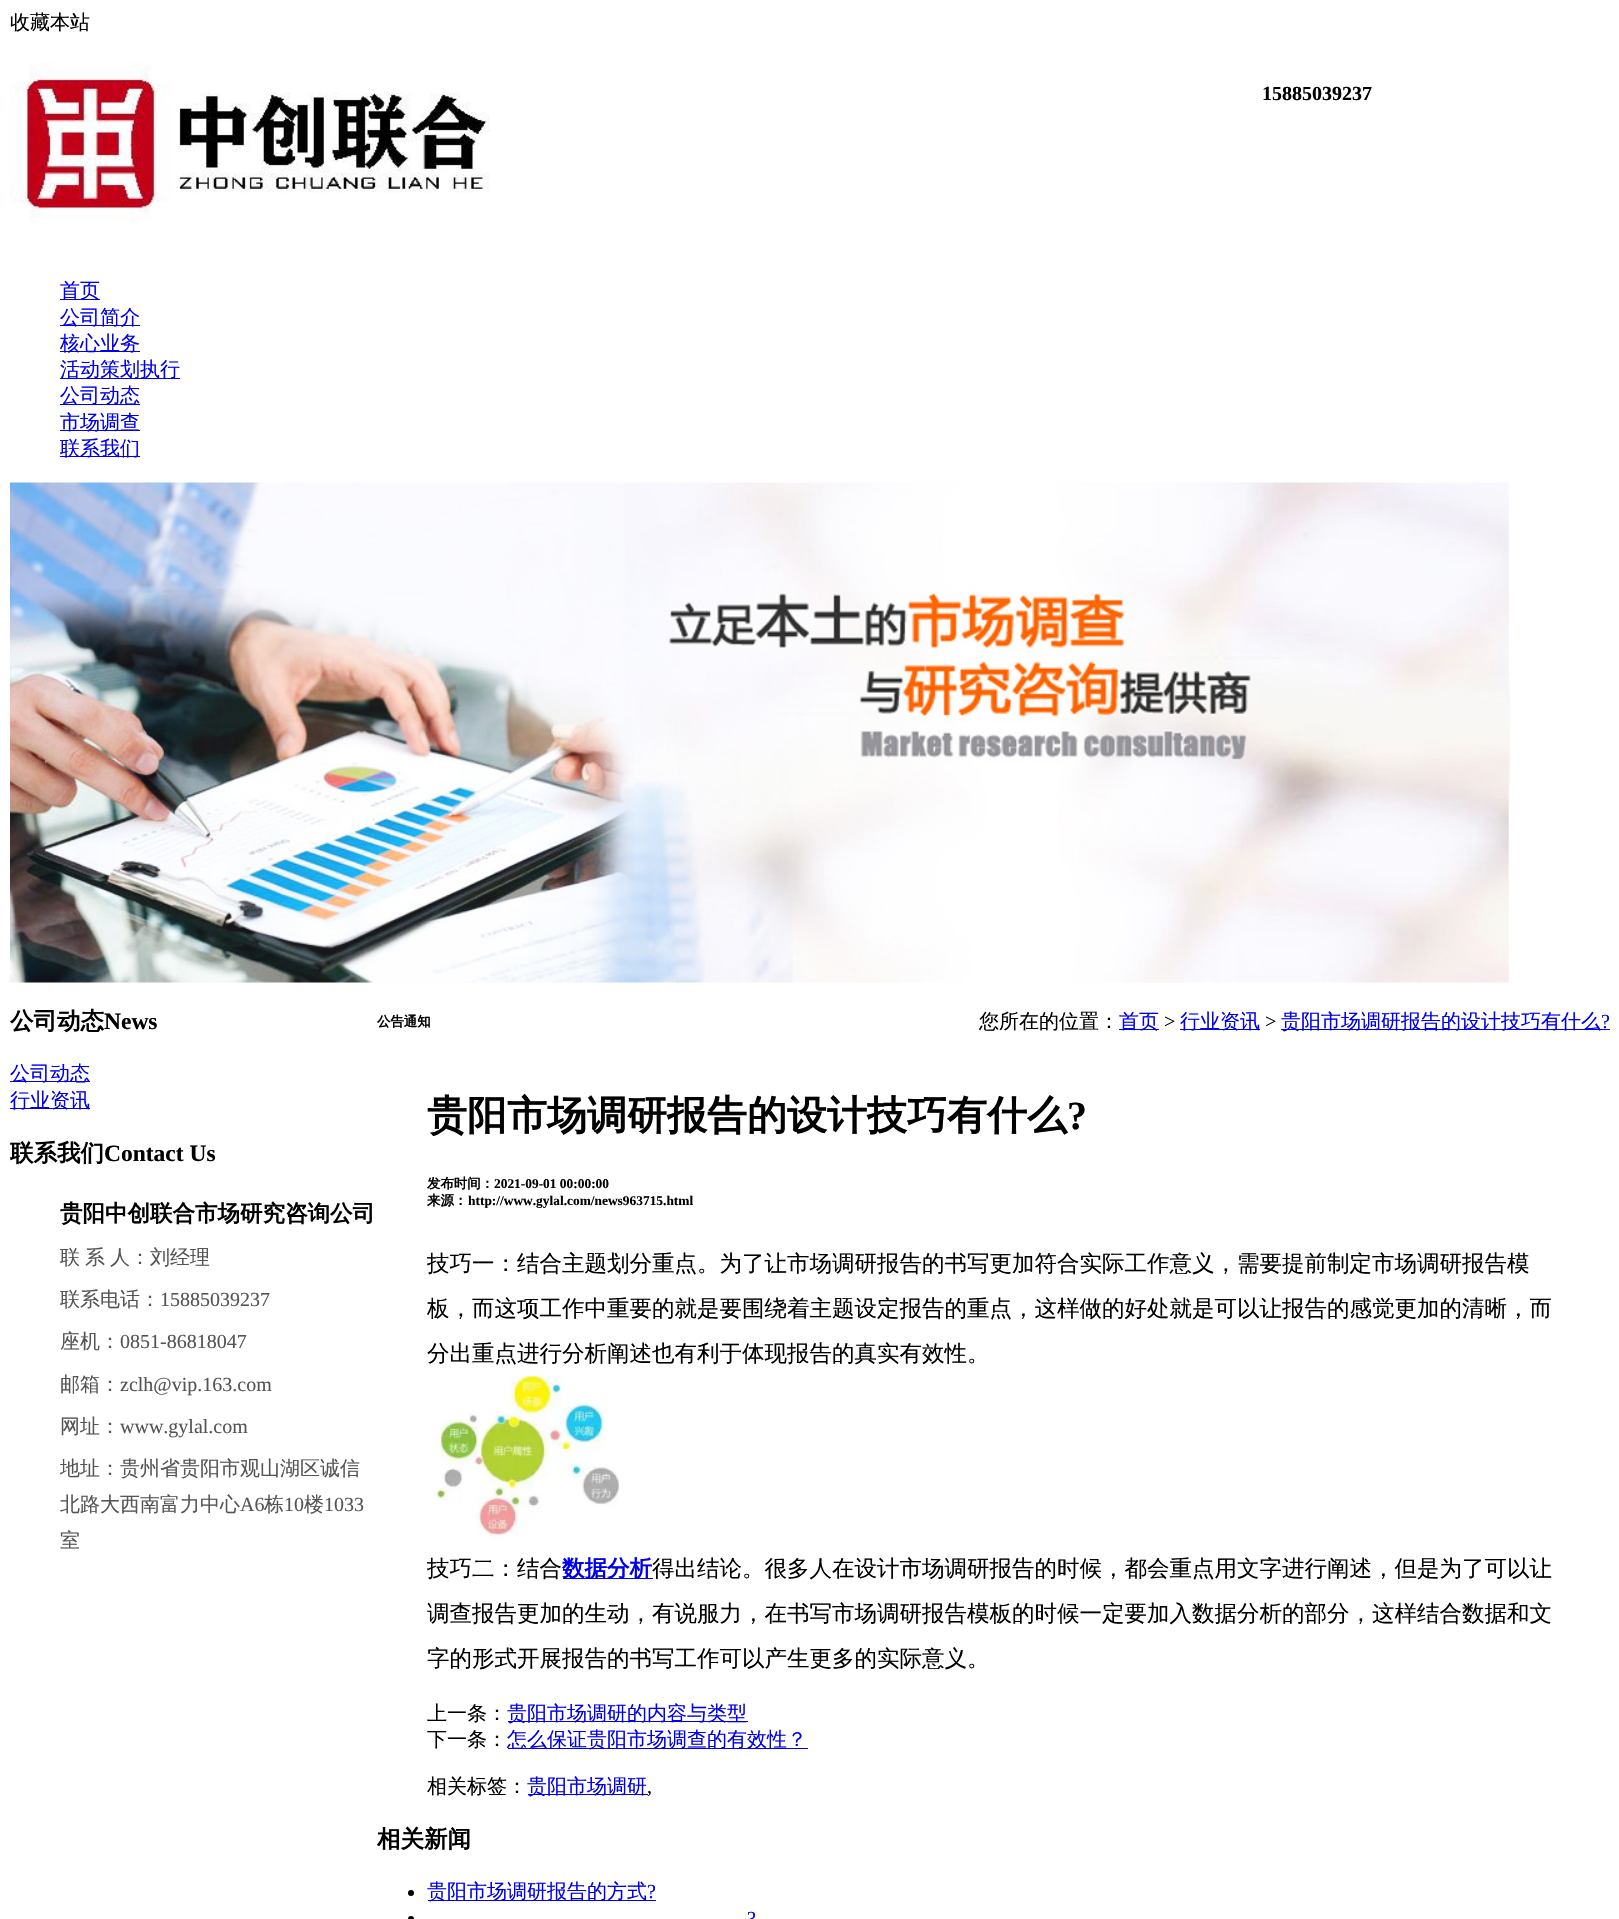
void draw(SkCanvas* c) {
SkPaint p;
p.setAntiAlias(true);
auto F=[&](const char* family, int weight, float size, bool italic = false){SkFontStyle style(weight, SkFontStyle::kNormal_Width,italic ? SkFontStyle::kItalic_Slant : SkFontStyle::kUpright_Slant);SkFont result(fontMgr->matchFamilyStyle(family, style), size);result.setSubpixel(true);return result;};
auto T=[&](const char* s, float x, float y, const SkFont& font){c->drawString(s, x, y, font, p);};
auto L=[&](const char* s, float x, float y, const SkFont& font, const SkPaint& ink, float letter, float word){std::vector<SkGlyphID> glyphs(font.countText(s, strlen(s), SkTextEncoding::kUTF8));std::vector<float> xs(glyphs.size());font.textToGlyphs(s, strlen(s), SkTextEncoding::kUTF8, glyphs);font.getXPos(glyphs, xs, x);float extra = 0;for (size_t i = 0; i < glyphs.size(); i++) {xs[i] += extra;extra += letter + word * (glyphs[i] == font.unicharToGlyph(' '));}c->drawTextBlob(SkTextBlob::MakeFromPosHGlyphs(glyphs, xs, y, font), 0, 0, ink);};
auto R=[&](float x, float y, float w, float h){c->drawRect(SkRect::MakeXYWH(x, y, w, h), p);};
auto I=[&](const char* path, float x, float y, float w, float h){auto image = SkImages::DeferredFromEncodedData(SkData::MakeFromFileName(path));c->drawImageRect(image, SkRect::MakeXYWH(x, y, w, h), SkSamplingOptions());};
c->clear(0xffffffff);
auto f1 = F("WenQuanYi Zen Hei",500,20);
p.setColor(0xff000000);
T("收藏本站",10,29,f1);
I("1.png",10,62,480,161);
auto f2 = F("Liberation Serif",700,20);
T("15885039237",1262,100,f2);
p.setColor(0xff0000ee);
R(60,299,40,1);
T("首页",60,297,f1);
R(60,325,80,1);
T("公司简介",60,324,f1);
R(60,351,80,1);
T("核心业务",60,350,f1);
R(60,378,120,1);
T("活动策划执行",60,376,f1);
R(60,404,80,1);
T("公司动态",60,402,f1);
R(60,430,80,1);
T("市场调查",60,429,f1);
R(60,456,80,1);
T("联系我们",60,455,f1);
I("2.png",10,482,1500,501);
auto f3 = F("WenQuanYi Zen Hei",700,23.5);
p.setColor(0xff000000);
T("公司动态",10,1029,f3);
auto f4 = F("Liberation Serif",700,23.5);
T("News",104,1029,f4);
p.setColor(0xff0000ee);
R(10,1081,80,1);
T("公司动态",10,1080,f1);
R(10,1108,80,1);
T("行业资讯",10,1107,f1);
p.setColor(0xff000000);
T("联系我们",10,1161,f3);
T("Contact Us",104,1161,f4);
auto f5 = F("WenQuanYi Zen Hei",700,22.5);
T("贵阳中创联合市场研究咨询公司",60,1221,f5);
p.setColor(0xff545454);
L("联 系 人：刘",60,1264,f1,p,0,-1);
T("经理",170,1264,f1);
T("联系电话：",60,1306,f1);
auto f6 = F("Liberation Serif",400,20);
T("15885039237",160,1306,f6);
T("座机：",60,1348,f1);
T("0851-86818047",120,1348,f6);
T("邮箱：",60,1391,f1);
T("zclh@vip.163.com",120,1391,f6);
T("网址：",60,1433,f1);
T("www.gylal.com",120,1433,f6);
T("地址：贵州省贵阳市观山湖区诚信",60,1475,f1);
T("北路大西南富力中心",60,1511,f1);
T("A6",240,1511,f6);
T("栋",264,1511,f1);
T("10",284,1511,f6);
T("楼",304,1511,f1);
T("1033",324,1511,f6);
T("室",60,1547,f1);
auto f7 = F("WenQuanYi Zen Hei",700,13.4);
p.setColor(0xff000000);
T("公告通知",377,1026,f7);
T("您所在的位置：",979,1028,f1);
p.setColor(0xff0000ee);
R(1119,1029,40,1);
T("首页",1119,1028,f1);
p.setColor(0xff000000);
T(">",1164,1028,f6);
p.setColor(0xff0000ee);
R(1180,1029,80,1);
T("行业资讯",1180,1028,f1);
p.setColor(0xff000000);
T(">",1265,1028,f6);
p.setColor(0xff0000ee);
R(1281,1029,329,1);
T("贵阳市场调研报告的设计技巧有什么",1281,1028,f1);
T("?",1601,1028,f6);
auto f8 = F("WenQuanYi Zen Hei",700,40);
p.setColor(0xff000000);
T("贵阳市场调研报告的设计技巧有什么",427,1129,f8);
auto f9 = F("Liberation Serif",700,40);
T("?",1067,1129,f9);
T("发布时间：",427,1188,f7);
auto f10 = F("Liberation Serif",700,13.4);
T("2021-09-01 00:00:00",494,1188,f10);
T("来源：",427,1205,f7);
T("http://www.gylal.com/news963715.html",468,1205,f10);
auto f11 = F("WenQuanYi Zen Hei",500,22.5);
T("技巧一：结合主题划分重点。为了让市场调研报告的书写更加符合实际工作意义，需要提前制定市场调研报告模",427,1271,f11);
T("板，而这项工作中重要的就是要围绕着主题设定报告的重点，这样做的好处就是可以让报告的感觉更加的清晰，而",427,1316,f11);
T("分出重点进行分析阐述也有利于体现报告的真实有效性。",427,1361,f11);
I("3.png",434,1376,185,165);
T("技巧二：结合",427,1576,f11);
p.setColor(0xff0000ee);
R(563,1578,90,1);
T("数据分析",562,1576,f5);
p.setColor(0xff000000);
T("得出结论。很多人在设计市场调研报告的时候，都会重点用文字进行阐述，但是为了可以让",652,1576,f11);
T("调查报告更加的生动，有说服力，在书写市场调研报告模板的时候一定要加入数据分析的部分，这样结合数据和文",427,1621,f11);
T("字的形式开展报告的书写工作可以产生更多的实际意义。",427,1666,f11);
T("上一条：",427,1720,f1);
p.setColor(0xff0000ee);
R(508,1721,240,1);
T("贵阳市场调研的内容与类型",507,1720,f1);
p.setColor(0xff000000);
T("下一条：",427,1746,f1);
p.setColor(0xff0000ee);
R(508,1748,300,1);
T("怎么保证贵阳市场调查的有效性？",507,1746,f1);
p.setColor(0xff000000);
T("相关标签：",427,1793,f1);
p.setColor(0xff0000ee);
R(528,1794,120,1);
T("贵阳市场调研",527,1793,f1);
p.setColor(0xff000000);
T(",",647,1793,f6);
T("相关新闻",377,1847,f3);
c->drawCircle(411,1893,3,p);
p.setColor(0xff0000ee);
R(428,1900,228,1);
T("贵阳市场调研报告的方式",427,1898,f1);
T("?",647,1898,f6);
p.setColor(0xff000000);
c->drawCircle(411,1919,3,p);
p.setColor(0xff0000ee);
T("?",747,1925,f6);
}
